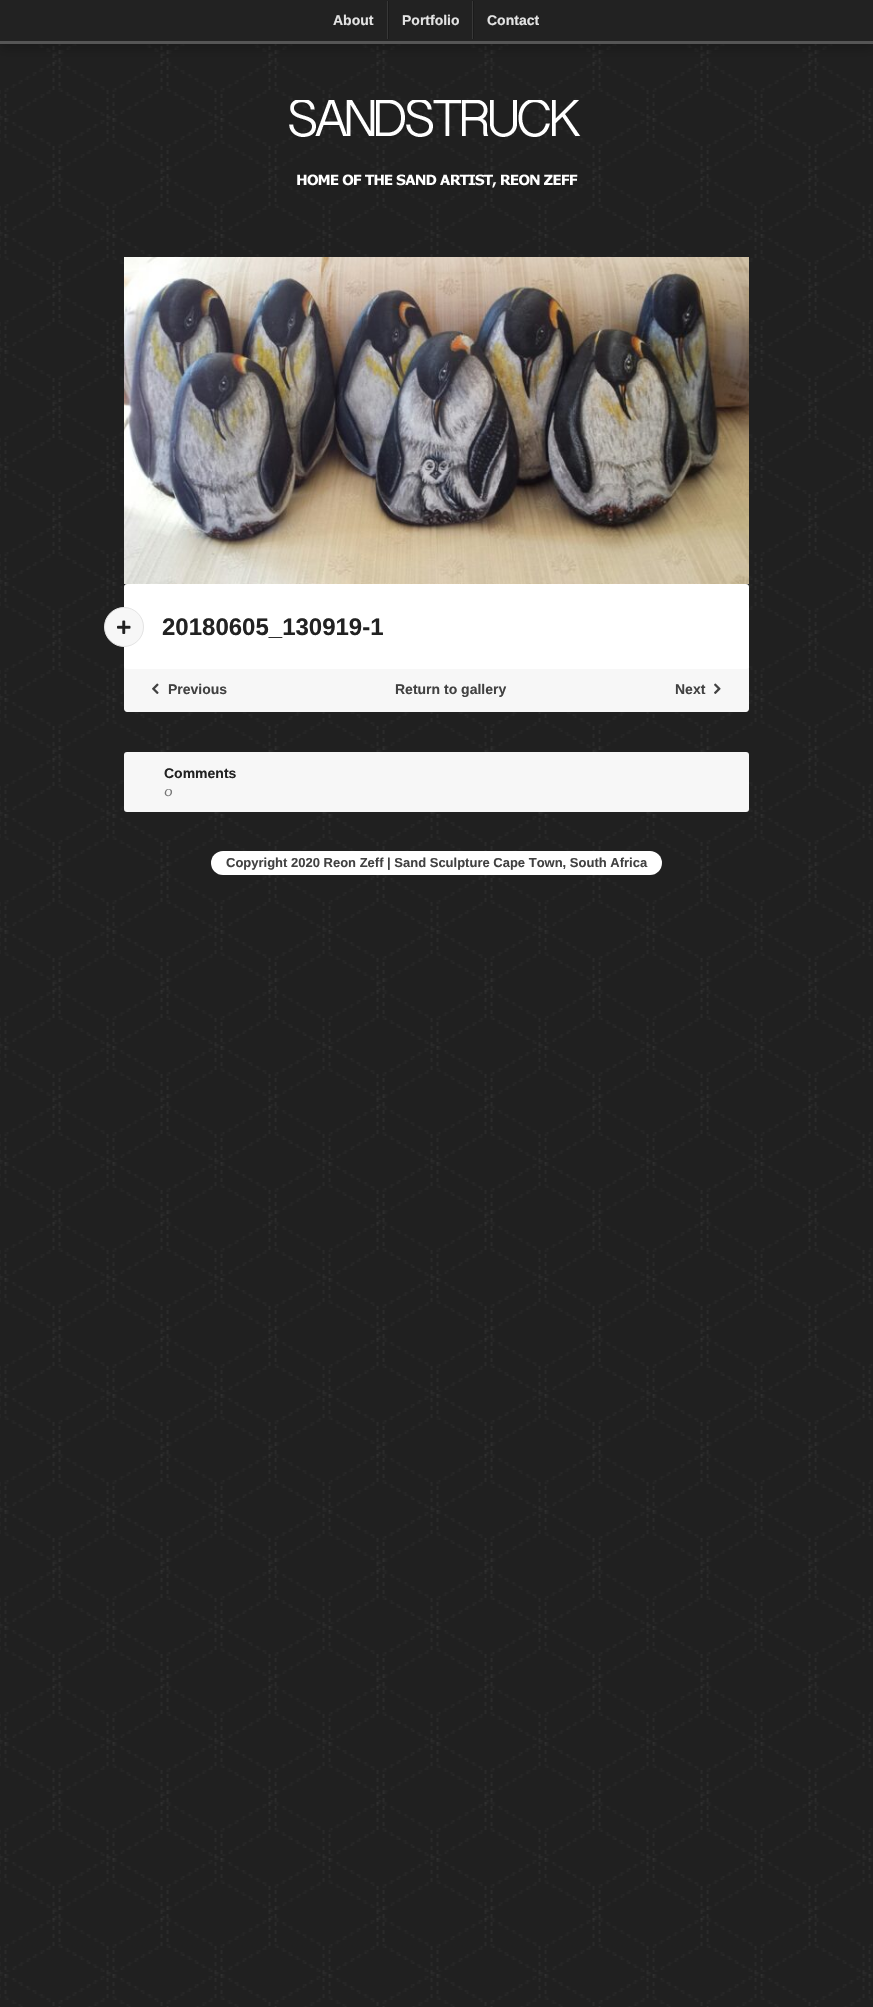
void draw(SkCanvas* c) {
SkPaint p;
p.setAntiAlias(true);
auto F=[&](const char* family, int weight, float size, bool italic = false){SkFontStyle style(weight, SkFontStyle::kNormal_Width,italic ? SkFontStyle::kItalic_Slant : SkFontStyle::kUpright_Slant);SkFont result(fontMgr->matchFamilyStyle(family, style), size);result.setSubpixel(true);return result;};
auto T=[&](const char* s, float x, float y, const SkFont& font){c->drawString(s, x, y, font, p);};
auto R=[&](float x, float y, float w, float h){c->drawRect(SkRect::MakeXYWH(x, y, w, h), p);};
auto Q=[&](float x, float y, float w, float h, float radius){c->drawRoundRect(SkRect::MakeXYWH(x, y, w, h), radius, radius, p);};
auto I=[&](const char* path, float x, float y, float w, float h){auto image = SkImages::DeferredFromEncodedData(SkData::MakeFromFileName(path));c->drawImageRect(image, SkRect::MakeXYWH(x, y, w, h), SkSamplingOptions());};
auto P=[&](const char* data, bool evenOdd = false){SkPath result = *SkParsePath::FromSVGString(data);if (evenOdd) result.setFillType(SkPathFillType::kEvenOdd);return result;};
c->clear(0xffffffff);
I("1.png",0,44,873,1963);
p.setColor(0x33000000);
p.setMaskFilter(SkMaskFilter::MakeBlur(kNormal_SkBlurStyle, 5));
c->drawRect(SkRect::MakeXYWH(0,5,873,44),p);
p.setMaskFilter(nullptr);
p.setColor(0xff222222);
R(0,0,873,41);
p.setColor(0xff555555);
R(0,41,873,3);
auto f1 = F("Liberation Sans",700,14);
p.setColor(0xffe3e3e3);
T("About",333,25,f1);
p.setColor(0xff383838);
R(387,1,1,38);
p.setColor(0xffe3e3e3);
T("Portfolio",402,25,f1);
p.setColor(0xff383838);
R(472,1,1,38);
p.setColor(0xff1b1b1b);
R(388,1,1,38);
p.setColor(0xffe3e3e3);
T("Contact",487,25,f1);
p.setColor(0xff1b1b1b);
R(473,1,1,38);
I("2.png",289,100,292,88);
I("3.png",124,257,625,327);
p.setColor(0xfff7f7f7);
c->drawPath(P("M124 666h625v43c0 1.5-1.5 3-3 3h-619c-1.5 0-3-1.5-3-3z"),p);
p.setColor(0xffffffff);
Q(124,584,625,85,3);
p.setColor(0xfff7f7f7);
c->drawCircle(124,627,19.5,p);
p.setStroke(true);
p.setStrokeWidth(1);
p.setColor(0xffe3e3e3);
c->drawCircle(124,627,19.5,p);
I("4.png",117,620,14,14);
auto f2 = F("Liberation Sans",700,24);
p.setStroke(false);
p.setColor(0xff222222);
T("20180605_130919-1",162,635,f2);
I("5.png",152,683,7,11);
p.setColor(0xff414141);
T("Previous",168,694,f1);
T("Return to gallery",395,694,f1);
T("Next",675,694,f1);
I("6.png",714,683,7,11);
p.setColor(0xfff7f7f7);
Q(124,752,625,60,3);
p.setColor(0xff222222);
T("Comments",164,778,f1);
auto f3 = F("Vollkorn",400,14,true);
p.setColor(0xff777777);
T("0",164,796,f3);
p.setColor(0xffffffff);
Q(211,851,451,24,12);
auto f4 = F("Liberation Sans",700,13);
p.setColor(0xff414141);
T("Copyright 2020 Reon Zeff | Sand Sculpture Cape Town, South Africa",226,867,f4);
}
